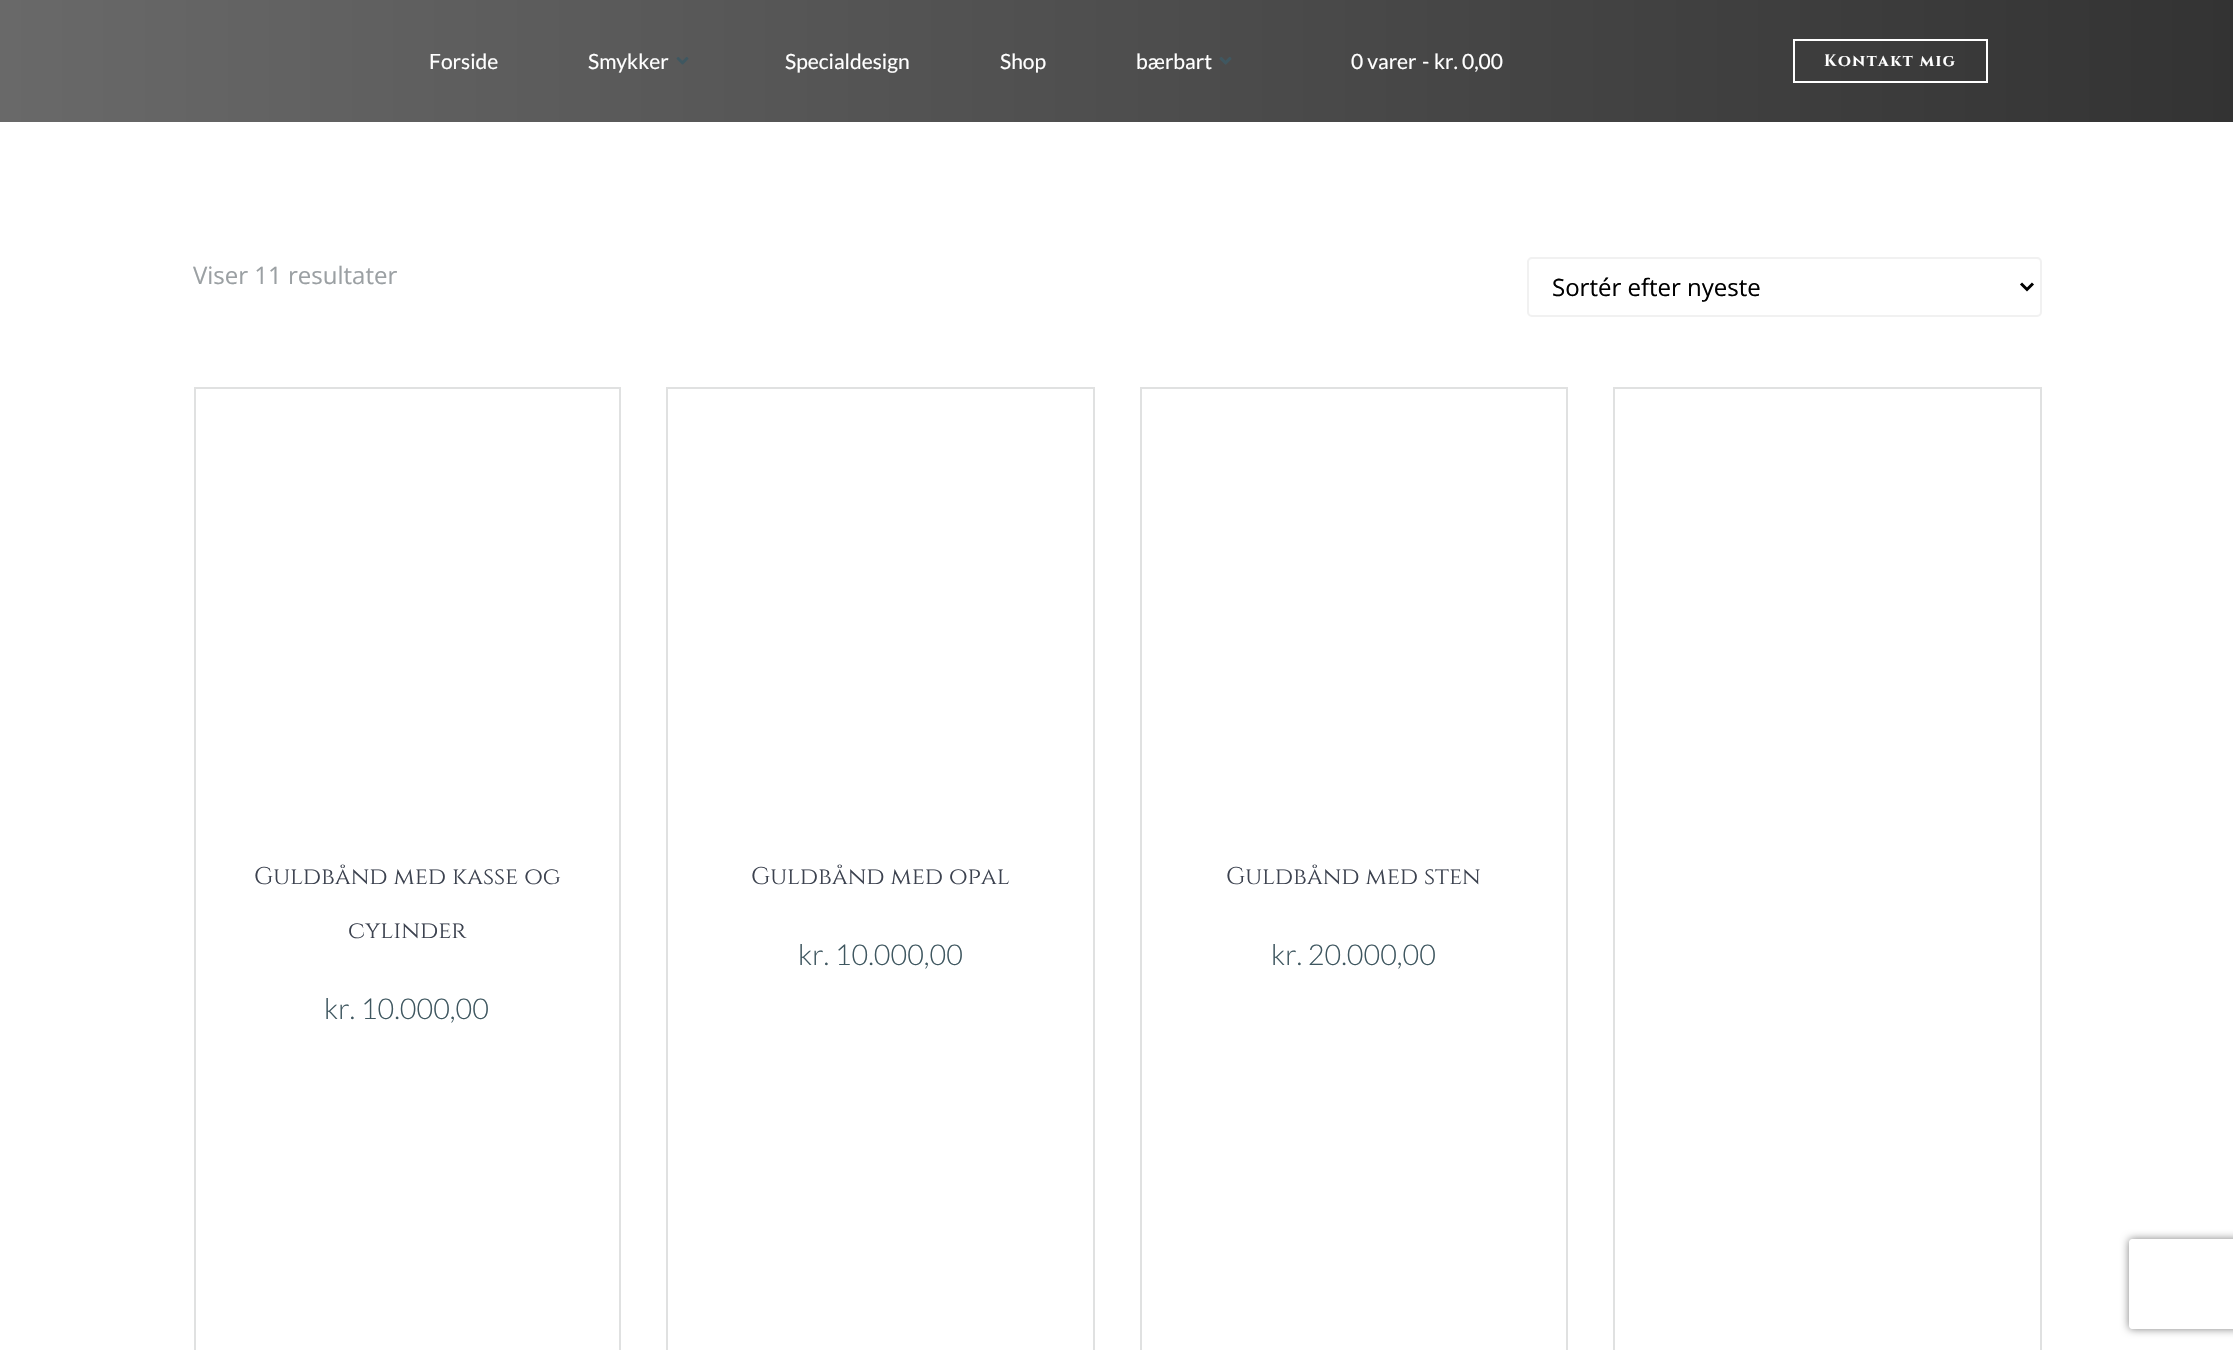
void draw(SkCanvas* c) {
SkPaint p;
p.setAntiAlias(true);
auto F=[&](const char* family, int weight, float size, bool italic = false){SkFontStyle style(weight, SkFontStyle::kNormal_Width,italic ? SkFontStyle::kItalic_Slant : SkFontStyle::kUpright_Slant);SkFont result(fontMgr->matchFamilyStyle(family, style), size);result.setSubpixel(true);return result;};
auto T=[&](const char* s, float x, float y, const SkFont& font){c->drawString(s, x, y, font, p);};
auto L=[&](const char* s, float x, float y, const SkFont& font, const SkPaint& ink, float letter, float word){std::vector<SkGlyphID> glyphs(font.countText(s, strlen(s), SkTextEncoding::kUTF8));std::vector<float> xs(glyphs.size());font.textToGlyphs(s, strlen(s), SkTextEncoding::kUTF8, glyphs);font.getXPos(glyphs, xs, x);float extra = 0;for (size_t i = 0; i < glyphs.size(); i++) {xs[i] += extra;extra += letter + word * (glyphs[i] == font.unicharToGlyph(' '));}c->drawTextBlob(SkTextBlob::MakeFromPosHGlyphs(glyphs, xs, y, font), 0, 0, ink);};
auto R=[&](float x, float y, float w, float h){c->drawRect(SkRect::MakeXYWH(x, y, w, h), p);};
auto I=[&](const char* path, float x, float y, float w, float h){auto image = SkImages::DeferredFromEncodedData(SkData::MakeFromFileName(path));c->drawImageRect(image, SkRect::MakeXYWH(x, y, w, h), SkSamplingOptions());};
auto P=[&](const char* data, bool evenOdd = false){SkPath result = *SkParsePath::FromSVGString(data);if (evenOdd) result.setFillType(SkPathFillType::kEvenOdd);return result;};
c->clear(0xffffffff);
{
const SkColor colors[] = {0xff696969,0xff333333};
const float stops[] = {0,1};
const SkPoint ends[] = {{0,61}, {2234,61}};
p.setShader(SkGradientShader::MakeLinear(ends, colors, stops, 2, SkTileMode::kClamp));
p.setAlpha(255);
}
R(0,0,2233,122);
auto f1 = F("Lato",400,21);
p.setShader(nullptr);
p.setColor(0xffffffff);
T("Forside",429,69,f1);
T("Smykker",588,69,f1);
I("1.png",676,57,13,8);
T("Specialdesign",785,69,f1);
T("Shop",1000,69,f1);
T("bærbart",1136,69,f1);
I("2.png",1219,57,13,8);
T("0 varer",1351,69,f1);
T("-",1422,69,f1);
T("kr. 0,00",1434,69,f1);
p.setStroke(true);
p.setStrokeWidth(2);
c->drawRect(SkRect::MakeXYWH(1794,40,193,42),p);
auto f2 = F("Cinzel",700,16.5);
p.setStroke(false);
L("Kontakt mig",1824,66,f2,p,1.5,0);
auto f3 = F("Open Sans",400,24);
p.setColor(0xff9ba0a3);
T("Viser 11 resultater",193,284,f3);
p.setStroke(true);
p.setColor(0xfff1f1f1);
c->drawRoundRect(SkRect::MakeXYWH(1528,258,513,58),4,4,p);
p.setStrokeWidth(3);
p.setColor(0xff000000);
c->drawPath(P("M2021 283.5l6 6l6-6"),p);
p.setStroke(false);
T("Sortér efter nyeste",1552,296,f3);
p.setStroke(true);
p.setStrokeWidth(2);
p.setColor(0xffe0e1e1);
c->drawRect(SkRect::MakeXYWH(195,388,425,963),p);
auto f4 = F("Cinzel",400,24);
p.setStroke(false);
p.setColor(0xff3c424f);
T("Guldbånd med kasse og",254,884,f4);
T("cylinder",348,938,f4);
auto f5 = F("Lato",300,28.75);
p.setColor(0xff3f5760);
T("kr. 10.000,00",324,1019,f5);
p.setStroke(true);
p.setColor(0xffe0e1e1);
c->drawRect(SkRect::MakeXYWH(667,388,427,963),p);
p.setStroke(false);
p.setColor(0xff3c424f);
T("Guldbånd med opal",751,884,f4);
p.setColor(0xff3f5760);
T("kr. 10.000,00",798,965,f5);
p.setStroke(true);
p.setColor(0xffe0e1e1);
c->drawRect(SkRect::MakeXYWH(1141,388,426,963),p);
p.setStroke(false);
p.setColor(0xff3c424f);
T("Guldbånd med sten",1226,884,f4);
p.setColor(0xff3f5760);
T("kr. 20.000,00",1271,965,f5);
p.setStroke(true);
p.setColor(0xffe0e1e1);
c->drawRect(SkRect::MakeXYWH(1614,388,427,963),p);
c->save();
c->clipPath(P("M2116 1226h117v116h-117zm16 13h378c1.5 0 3 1.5 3 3v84c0 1.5-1.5 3-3 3h-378c-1.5 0-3-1.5-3-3v-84c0-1.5 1.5-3 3-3z",true),true);
p.setStroke(false);
p.setColor(0xff808080);
p.setMaskFilter(SkMaskFilter::MakeBlur(kNormal_SkBlurStyle, 4));
c->drawRoundRect(SkRect::MakeXYWH(2129,1239,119,90),3,3,p);
p.setMaskFilter(nullptr);
c->restore();
}
